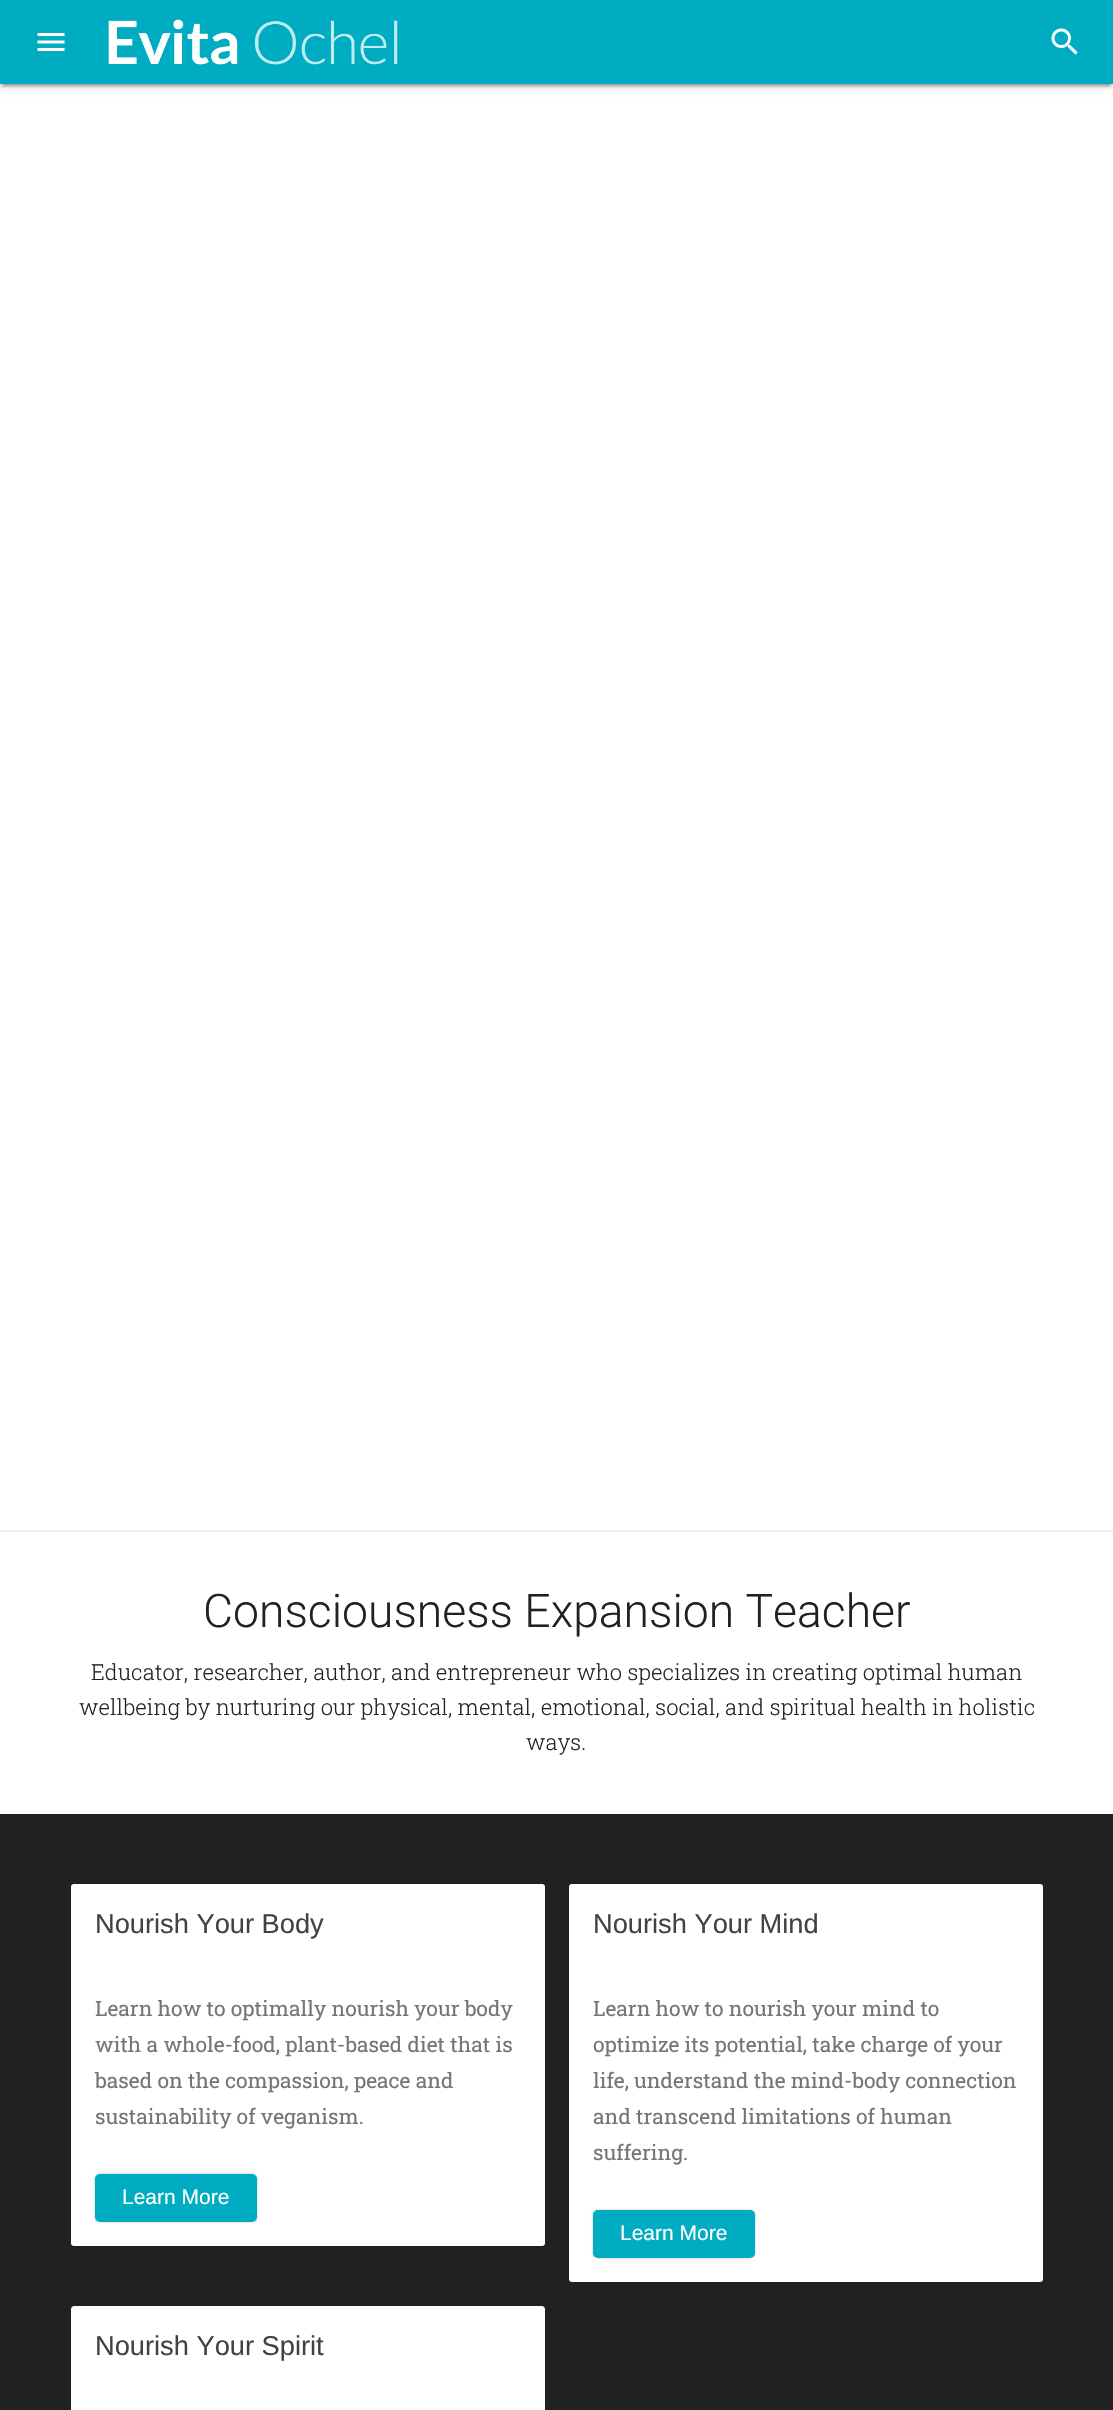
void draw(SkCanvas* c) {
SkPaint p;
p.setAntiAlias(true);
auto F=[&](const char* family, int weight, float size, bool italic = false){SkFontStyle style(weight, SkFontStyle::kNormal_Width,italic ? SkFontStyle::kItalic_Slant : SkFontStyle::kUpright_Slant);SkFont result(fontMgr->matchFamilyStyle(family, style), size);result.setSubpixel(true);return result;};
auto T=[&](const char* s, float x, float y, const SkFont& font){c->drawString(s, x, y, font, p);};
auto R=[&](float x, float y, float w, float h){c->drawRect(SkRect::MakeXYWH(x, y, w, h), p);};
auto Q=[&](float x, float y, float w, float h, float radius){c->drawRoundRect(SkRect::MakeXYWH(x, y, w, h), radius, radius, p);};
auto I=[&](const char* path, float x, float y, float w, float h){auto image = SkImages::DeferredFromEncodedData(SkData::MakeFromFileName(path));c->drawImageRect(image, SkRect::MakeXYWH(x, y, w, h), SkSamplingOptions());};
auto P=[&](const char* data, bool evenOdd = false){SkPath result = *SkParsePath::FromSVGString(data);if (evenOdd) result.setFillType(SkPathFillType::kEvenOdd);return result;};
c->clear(0xffffffff);
p.setColor(0x1f000000);
p.setMaskFilter(SkMaskFilter::MakeBlur(kNormal_SkBlurStyle, 4));
c->drawRect(SkRect::MakeXYWH(0,2,1113,84),p);
p.setMaskFilter(nullptr);
p.setColor(0x33000000);
p.setMaskFilter(SkMaskFilter::MakeBlur(kNormal_SkBlurStyle, 1));
c->drawRect(SkRect::MakeXYWH(3,8,1107,78),p);
p.setMaskFilter(nullptr);
p.setColor(0x24000000);
p.setMaskFilter(SkMaskFilter::MakeBlur(kNormal_SkBlurStyle, 1.5));
c->drawRect(SkRect::MakeXYWH(0,3,1113,84),p);
p.setMaskFilter(nullptr);
p.setColor(0xff00acc1);
R(0,0,1113,84);
I("1.png",37,33,28,18);
I("2.png",108,19,290,46);
I("3.png",1051,28,27,27);
p.setColor(0xfff0f0f0);
R(0,1530,1113,2);
auto f1 = F("Roboto",300,46.25);
p.setColor(0xff212121);
T("Consciousness Expansion Teacher",203,1627,f1);
auto f2 = F("Roboto Slab",300,22.05);
T("Educator, researcher, author, and entrepreneur who specializes in creating optimal human",91,1680,f2);
T("wellbeing by nurturing our physical, mental, emotional, social, and spiritual health in holistic",79,1715,f2);
T("ways.",526,1750,f2);
R(0,1814,1113,596);
p.setColor(0xffffffff);
Q(71,1884,474,362,3);
auto f3 = F("Liberation Sans",400,27.25);
p.setColor(0xff424242);
T("Nourish Your Body",95,1933,f3);
auto f4 = F("Roboto Slab",400,21);
p.setColor(0xff757575);
T("Learn how to optimally nourish your body",95,2016,f4);
T("with a whole-food, plant-based diet that is",95,2052,f4);
T("based on the compassion, peace and",95,2088,f4);
T("sustainability of veganism.",95,2124,f4);
p.setColor(0x4d000000);
p.setMaskFilter(SkMaskFilter::MakeBlur(kNormal_SkBlurStyle, 1));
c->drawRoundRect(SkRect::MakeXYWH(95,2174,162,48),5,5,p);
p.setMaskFilter(nullptr);
p.setColor(0xff00acc1);
Q(95,2174,162,48,5);
auto f5 = F("Liberation Sans",400,21);
p.setColor(0xffffffff);
T("Learn More",122,2204,f5);
Q(569,1884,474,398,3);
p.setColor(0xff424242);
T("Nourish Your Mind",593,1933,f3);
p.setColor(0xff757575);
T("Learn how to nourish your mind to",593,2016,f4);
T("optimize its potential, take charge of your",593,2052,f4);
T("life, understand the mind-body connection",593,2088,f4);
T("and transcend limitations of human",593,2124,f4);
T("suffering.",593,2160,f4);
p.setColor(0x4d000000);
p.setMaskFilter(SkMaskFilter::MakeBlur(kNormal_SkBlurStyle, 1));
c->drawRoundRect(SkRect::MakeXYWH(593,2210,162,48),5,5,p);
p.setMaskFilter(nullptr);
p.setColor(0xff00acc1);
Q(593,2210,162,48,5);
p.setColor(0xffffffff);
T("Learn More",620,2240,f5);
c->drawPath(P("M74 2306h468c1.5 0 3 1.5 3 3v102h-474v-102c0-1.5 1.5-3 3-3z"),p);
p.setColor(0xff424242);
T("Nourish Your Spirit",95,2355,f3);
}
